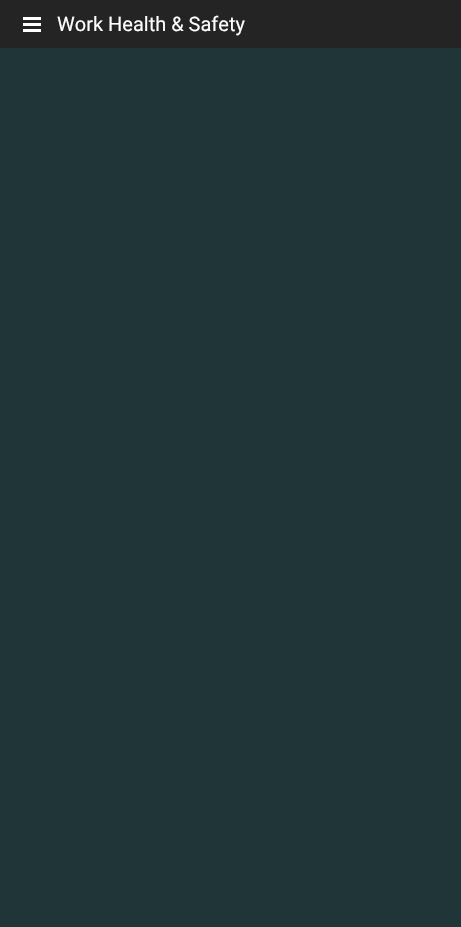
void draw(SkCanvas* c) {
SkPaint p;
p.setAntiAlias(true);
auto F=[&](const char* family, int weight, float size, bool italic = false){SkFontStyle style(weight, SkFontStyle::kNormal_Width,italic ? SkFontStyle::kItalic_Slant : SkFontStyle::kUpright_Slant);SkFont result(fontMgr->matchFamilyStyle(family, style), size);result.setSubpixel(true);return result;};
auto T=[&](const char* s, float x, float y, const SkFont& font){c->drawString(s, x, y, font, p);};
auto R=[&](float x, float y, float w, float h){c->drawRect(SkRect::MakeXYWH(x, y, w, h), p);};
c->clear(0xff1f3537);
p.setColor(0xff242424);
R(0,0,461,48);
p.setColor(0xffffffff);
R(23,17,18,3);
R(23,23,18,3);
R(23,29,18,3);
auto f1 = F("Roboto",400,20);
T("Work Health & Safety",57,31,f1);
}
